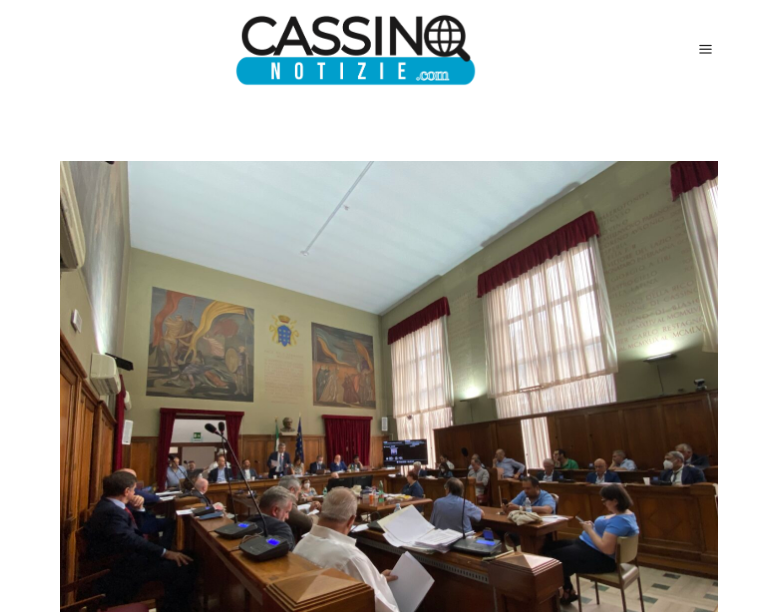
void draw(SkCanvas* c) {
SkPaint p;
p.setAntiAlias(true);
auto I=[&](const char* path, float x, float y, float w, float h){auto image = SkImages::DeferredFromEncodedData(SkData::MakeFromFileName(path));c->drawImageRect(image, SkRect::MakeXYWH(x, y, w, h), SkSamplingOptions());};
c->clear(0xffffffff);
I("1.png",235,14,241,72);
I("2.png",699,44,13,10);
I("3.png",60,161,658,451);
}
